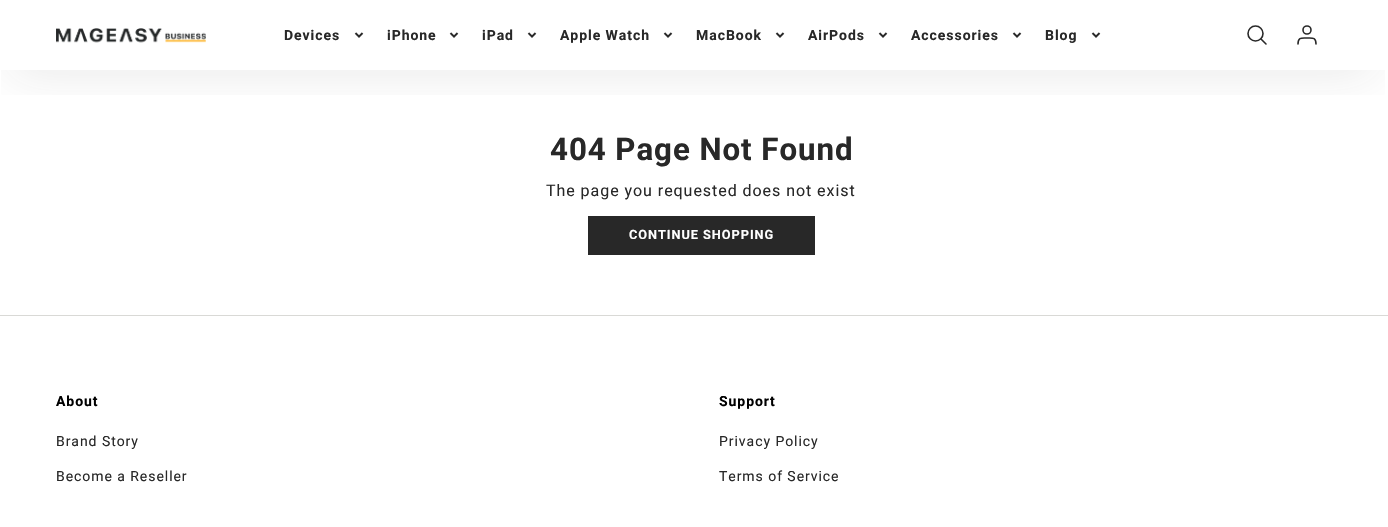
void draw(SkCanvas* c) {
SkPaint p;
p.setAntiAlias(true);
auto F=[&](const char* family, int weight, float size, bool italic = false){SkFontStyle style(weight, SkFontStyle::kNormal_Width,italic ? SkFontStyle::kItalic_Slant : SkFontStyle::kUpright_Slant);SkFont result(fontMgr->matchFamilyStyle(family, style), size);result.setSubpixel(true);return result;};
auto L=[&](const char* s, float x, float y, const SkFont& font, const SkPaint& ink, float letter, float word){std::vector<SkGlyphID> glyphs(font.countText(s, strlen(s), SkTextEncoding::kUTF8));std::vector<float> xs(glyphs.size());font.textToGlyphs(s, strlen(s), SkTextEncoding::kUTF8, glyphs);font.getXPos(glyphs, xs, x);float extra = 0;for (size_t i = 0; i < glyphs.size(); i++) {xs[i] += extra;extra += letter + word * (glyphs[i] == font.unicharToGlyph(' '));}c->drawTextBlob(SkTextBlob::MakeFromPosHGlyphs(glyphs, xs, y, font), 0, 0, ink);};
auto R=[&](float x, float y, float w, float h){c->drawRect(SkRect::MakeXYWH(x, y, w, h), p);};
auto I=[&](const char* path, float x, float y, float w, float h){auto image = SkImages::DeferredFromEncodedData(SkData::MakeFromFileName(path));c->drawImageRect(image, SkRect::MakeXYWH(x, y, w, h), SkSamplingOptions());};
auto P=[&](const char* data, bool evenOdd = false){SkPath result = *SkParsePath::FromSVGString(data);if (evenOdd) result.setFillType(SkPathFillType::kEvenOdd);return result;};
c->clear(0xffffffff);
c->save();
c->clipRect(SkRect::MakeXYWH(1,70,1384,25));
p.setColor(0x1a292929);
p.setMaskFilter(SkMaskFilter::MakeBlur(kNormal_SkBlurStyle, 25));
c->drawRect(SkRect::MakeXYWH(9,24,1368,50),p);
p.setMaskFilter(nullptr);
c->restore();
I("1.png",56,28,150,15);
auto f1 = F("Roboto",700,14);
p.setColor(0xff282828);
L("Devices",284,40,f1,p,.95,0);
I("2.png",354,32,10,6);
L("iPhone",387,40,f1,p,.95,0);
I("2.png",449,32,10,6);
L("iPad",482,40,f1,p,.95,0);
I("2.png",527,32,10,6);
L("Apple Watch",560,40,f1,p,.95,0);
I("2.png",663,32,10,6);
L("MacBook",696,40,f1,p,.95,0);
I("2.png",775,32,10,6);
L("AirPods",808,40,f1,p,.95,0);
I("2.png",878,32,10,6);
L("Accessories",911,40,f1,p,.95,0);
I("2.png",1012,32,10,6);
L("Blog",1045,40,f1,p,.95,0);
I("2.png",1091,32,10,6);
p.setStroke(true);
p.setStrokeWidth(1.6);
p.setColor(0xff292929);
c->drawCircle(1255.5,33.5,7.5,p);
p.setStrokeCap(SkPaint::kRound_Cap);
p.setStrokeJoin(SkPaint::kRound_Join);
c->drawPath(P("M1266 44l-5-5"),p);
p.setStrokeCap(SkPaint::kButt_Cap);
p.setStrokeJoin(SkPaint::kMiter_Join);
c->drawCircle(1307,30,4,p);
p.setStrokeCap(SkPaint::kRound_Cap);
p.setStrokeJoin(SkPaint::kRound_Join);
c->drawPath(P("M1316 44c0-7-3.5-6-9-6c-5.5 0-9-1-9 6"),p);
auto f2 = F("Roboto",700,31.25);
p.setStroke(false);
p.setColor(0xff282828);
L("404 Page Not Found",550,160,f2,p,.95,0);
auto f3 = F("Roboto",400,16);
L("The page you requested does not exist",546,196,f3,p,.95,0);
R(588,216,227,39);
auto f4 = F("Roboto",700,12.75);
p.setColor(0xffffffff);
L("CONTINUE SHOPPING",629,239,f4,p,.95,0);
p.setColor(0xffd9d9d6);
R(0,315,1388,1);
p.setColor(0xff000000);
L("About",56,406,f1,p,.95,0);
auto f5 = F("Roboto",400,14);
p.setColor(0xff282828);
L("Brand Story",56,446,f5,p,.95,0);
L("Become a Reseller",56,481,f5,p,.95,0);
p.setColor(0xff000000);
L("Support",719,406,f1,p,.95,0);
p.setColor(0xff282828);
L("Privacy Policy",719,446,f5,p,.95,0);
L("Terms of Service",719,481,f5,p,.95,0);
}
